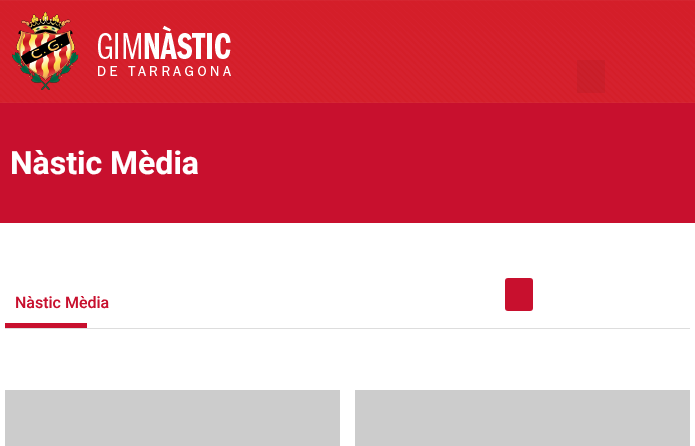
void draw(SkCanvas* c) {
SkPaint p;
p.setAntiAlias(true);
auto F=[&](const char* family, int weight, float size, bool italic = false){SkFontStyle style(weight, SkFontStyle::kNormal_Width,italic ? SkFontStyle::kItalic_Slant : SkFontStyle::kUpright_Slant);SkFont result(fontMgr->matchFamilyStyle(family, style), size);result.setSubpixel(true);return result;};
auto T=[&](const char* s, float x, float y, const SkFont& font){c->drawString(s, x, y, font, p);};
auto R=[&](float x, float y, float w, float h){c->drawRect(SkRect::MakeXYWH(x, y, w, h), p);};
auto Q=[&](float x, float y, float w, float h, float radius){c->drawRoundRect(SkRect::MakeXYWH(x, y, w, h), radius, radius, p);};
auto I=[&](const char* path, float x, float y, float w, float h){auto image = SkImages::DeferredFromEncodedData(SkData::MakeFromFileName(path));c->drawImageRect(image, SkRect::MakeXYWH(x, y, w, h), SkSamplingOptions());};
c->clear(0xffffffff);
I("1.png",0,0,695,103);
I("2.png",12,12,219,78);
p.setColor(0x0d000000);
R(577,60,28,33);
p.setColor(0xffc8102e);
R(0,103,695,120);
auto f1 = F("Roboto",700,32);
p.setColor(0xffffffff);
T("Nàstic Mèdia",10,174,f1);
auto f2 = F("Roboto",500,16);
p.setColor(0xffc8102e);
T("Nàstic Mèdia",15,308,f2);
Q(505,278,28,33,3);
R(5,323,82,5);
p.setColor(0xffdddddd);
R(5,328,685,1);
p.setColor(0xffcccccc);
R(5,390,335,56);
R(355,390,335,56);
}
